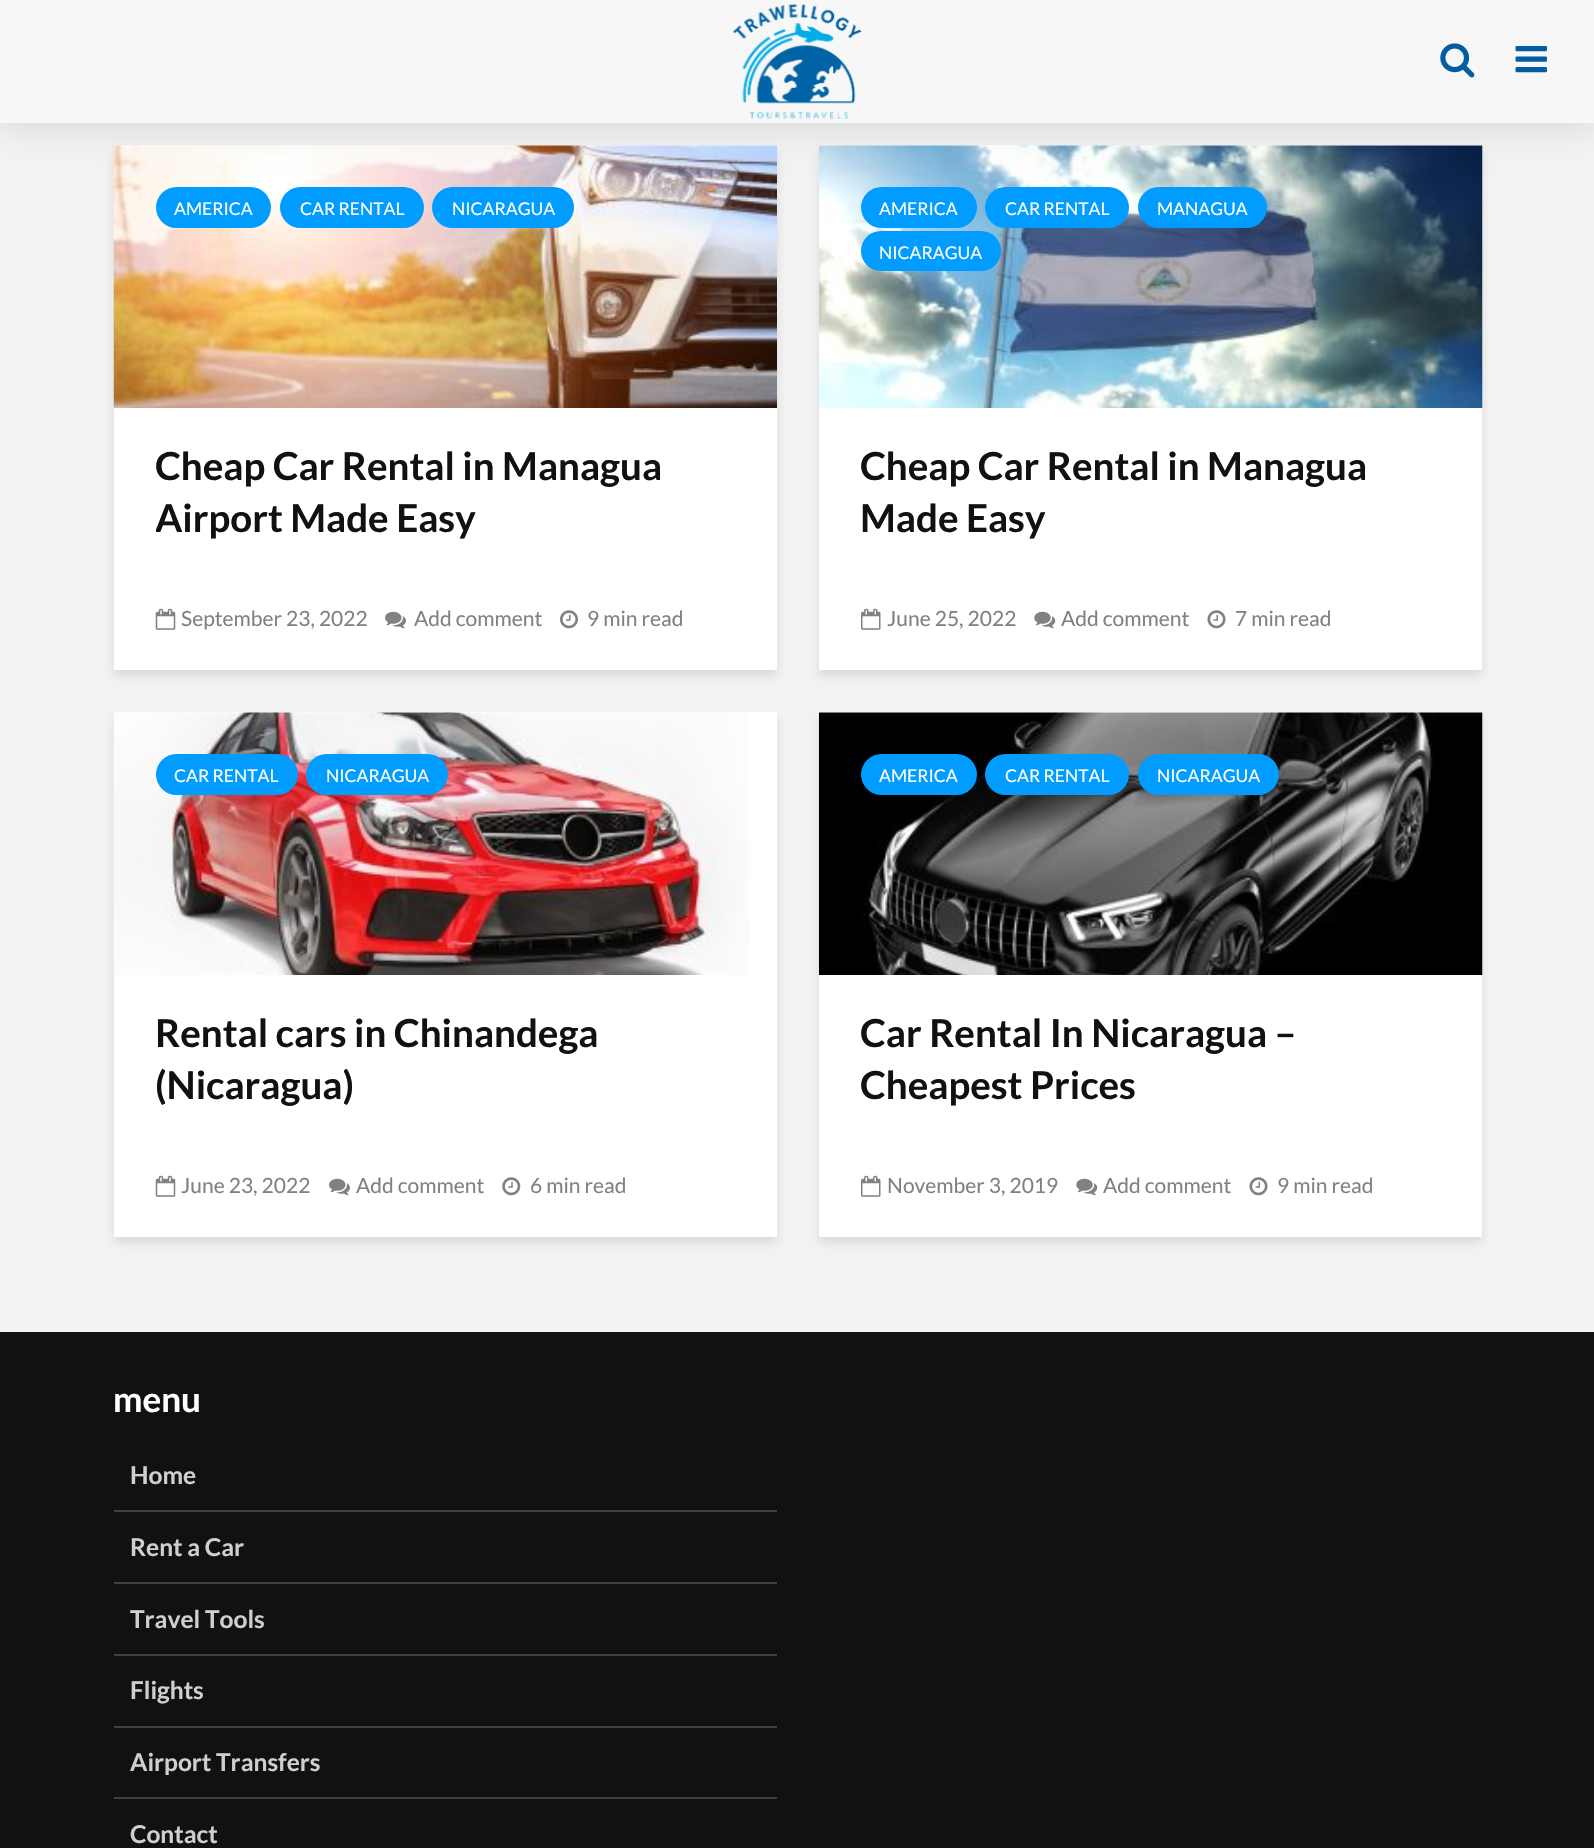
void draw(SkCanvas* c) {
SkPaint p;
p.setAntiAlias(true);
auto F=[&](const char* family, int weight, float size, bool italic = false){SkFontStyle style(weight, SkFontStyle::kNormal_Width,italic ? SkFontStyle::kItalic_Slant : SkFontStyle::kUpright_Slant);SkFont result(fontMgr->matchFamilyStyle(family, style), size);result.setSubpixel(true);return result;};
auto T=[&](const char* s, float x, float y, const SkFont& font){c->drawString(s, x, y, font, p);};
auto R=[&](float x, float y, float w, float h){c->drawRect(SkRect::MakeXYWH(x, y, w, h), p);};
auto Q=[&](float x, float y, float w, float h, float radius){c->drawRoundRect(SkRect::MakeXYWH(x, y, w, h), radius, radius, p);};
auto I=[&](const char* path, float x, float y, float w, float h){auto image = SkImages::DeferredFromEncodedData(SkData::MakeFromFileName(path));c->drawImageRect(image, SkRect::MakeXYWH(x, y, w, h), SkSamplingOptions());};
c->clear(0xfff3f3f3);
p.setColor(0x1a000101);
p.setMaskFilter(SkMaskFilter::MakeBlur(kNormal_SkBlurStyle, 4.5));
c->drawRect(SkRect::MakeXYWH(114,151,663,525),p);
p.setMaskFilter(nullptr);
p.setColor(0xffffffff);
R(114,145,663,525);
I("4.png",113,145,664,263);
p.setColor(0x1a000101);
p.setMaskFilter(SkMaskFilter::MakeBlur(kNormal_SkBlurStyle, 4.5));
c->drawRect(SkRect::MakeXYWH(819,151,663,525),p);
p.setMaskFilter(nullptr);
p.setColor(0xffffffff);
R(819,145,663,525);
I("8.png",819,145,664,263);
p.setColor(0x26000000);
p.setMaskFilter(SkMaskFilter::MakeBlur(kNormal_SkBlurStyle, 17.5));
c->drawRect(SkRect::MakeXYWH(0,0,1594,123),p);
p.setMaskFilter(nullptr);
p.setColor(0xfff7f7f7);
R(0,0,1594,123);
I("1.png",732,3,130,116);
I("2.png",1440,43,35,35);
I("3.png",1515,46,32,27);
p.setColor(0xff009cff);
Q(156,187,115,41,20.5);
auto f1 = F("Lato",400,17.5);
p.setColor(0xffffffff);
T("AMERICA",174,215,f1);
p.setColor(0xff009cff);
Q(280,187,144,41,20.5);
p.setColor(0xffffffff);
T("CAR RENTAL",300,215,f1);
p.setColor(0xff009cff);
Q(432,187,142,41,20.5);
p.setColor(0xffffffff);
T("NICARAGUA",452,215,f1);
auto f2 = F("Lato",700,38.5);
p.setColor(0xff111111);
T("Cheap Car Rental in Managua",155,480,f2);
c->save();
c->clipRect(SkRect::MakeXYWH(156,439,579,149));
T("Airport Made Easy",155,532,f2);
c->restore();
I("5.png",155,608,21,22);
auto f3 = F("Lato",400,21);
p.setColor(0xff818181);
T("September 23, 2022",181,626,f3);
I("6.png",385,611,21,18);
T("Add comment",414,626,f3);
I("7.png",560,610,18,19);
T("9 min read",587,626,f3);
p.setColor(0xff009cff);
Q(861,187,116,41,20.5);
p.setColor(0xffffffff);
T("AMERICA",879,215,f1);
p.setColor(0xff009cff);
Q(985,187,144,41,20.5);
p.setColor(0xffffffff);
T("CAR RENTAL",1005,215,f1);
p.setColor(0xff009cff);
Q(1138,187,129,41,20.5);
p.setColor(0xffffffff);
T("MANAGUA",1157,215,f1);
p.setColor(0xff009cff);
Q(861,231,140,40,20);
p.setColor(0xffffffff);
T("NICARAGUA",879,259,f1);
p.setColor(0xff111111);
T("Cheap Car Rental in Managua",860,480,f2);
T("Made Easy",860,532,f2);
I("9.png",861,608,20,22);
p.setColor(0xff818181);
T("June 25, 2022",887,626,f3);
I("10.png",1034,611,22,18);
T("Add comment",1061,626,f3);
I("11.png",1207,610,19,19);
T("7 min read",1235,626,f3);
p.setColor(0x1a000101);
p.setMaskFilter(SkMaskFilter::MakeBlur(kNormal_SkBlurStyle, 4.5));
c->drawRect(SkRect::MakeXYWH(114,718,663,525),p);
p.setMaskFilter(nullptr);
p.setColor(0xffffffff);
R(114,712,663,525);
I("12.png",113,712,636,263);
p.setColor(0xff009cff);
Q(156,754,142,41,20.5);
p.setColor(0xffffffff);
T("CAR RENTAL",174,782,f1);
p.setColor(0xff009cff);
Q(306,754,142,41,20.5);
p.setColor(0xffffffff);
T("NICARAGUA",326,782,f1);
p.setColor(0xff111111);
T("Rental cars in Chinandega",155,1047,f2);
T("(Nicaragua)",155,1099,f2);
I("5.png",155,1175,21,22);
p.setColor(0xff818181);
T("June 23, 2022",181,1193,f3);
I("6.png",329,1178,21,18);
T("Add comment",356,1193,f3);
I("13.png",502,1177,19,19);
T("6 min read",530,1193,f3);
p.setColor(0x1a000101);
p.setMaskFilter(SkMaskFilter::MakeBlur(kNormal_SkBlurStyle, 4.5));
c->drawRect(SkRect::MakeXYWH(819,718,663,525),p);
p.setMaskFilter(nullptr);
p.setColor(0xffffffff);
R(819,712,663,525);
I("14.png",819,712,664,263);
p.setColor(0xff009cff);
Q(861,754,116,41,20.5);
p.setColor(0xffffffff);
T("AMERICA",879,782,f1);
p.setColor(0xff009cff);
Q(985,754,144,41,20.5);
p.setColor(0xffffffff);
T("CAR RENTAL",1005,782,f1);
p.setColor(0xff009cff);
Q(1138,754,141,41,20.5);
p.setColor(0xffffffff);
T("NICARAGUA",1157,782,f1);
p.setColor(0xff111111);
T("Car Rental In Nicaragua –",860,1047,f2);
T("Cheapest Prices",860,1099,f2);
I("9.png",861,1175,20,22);
p.setColor(0xff818181);
T("November 3, 2019",887,1193,f3);
I("10.png",1076,1178,22,18);
T("Add comment",1103,1193,f3);
I("11.png",1249,1177,19,19);
T("9 min read",1277,1193,f3);
p.setColor(0xff111111);
R(0,1332,1594,516);
auto f4 = F("Lato",700,35);
p.setColor(0xffffffff);
T("menu",113,1412,f4);
p.setColor(0xff414141);
R(114,1510,663,2);
auto f5 = F("Lato",700,24.5);
p.setColor(0xffcfcfcf);
T("Home",130,1484,f5);
p.setColor(0xff414141);
R(114,1582,663,2);
p.setColor(0xffcfcfcf);
T("Rent a Car",130,1556,f5);
p.setColor(0xff414141);
R(114,1654,663,2);
p.setColor(0xffcfcfcf);
T("Travel Tools",130,1628,f5);
p.setColor(0xff414141);
R(114,1726,663,2);
p.setColor(0xffcfcfcf);
T("Flights",130,1699,f5);
p.setColor(0xff414141);
R(114,1797,663,2);
p.setColor(0xffcfcfcf);
T("Airport Transfers",130,1771,f5);
T("Contact",130,1843,f5);
}
